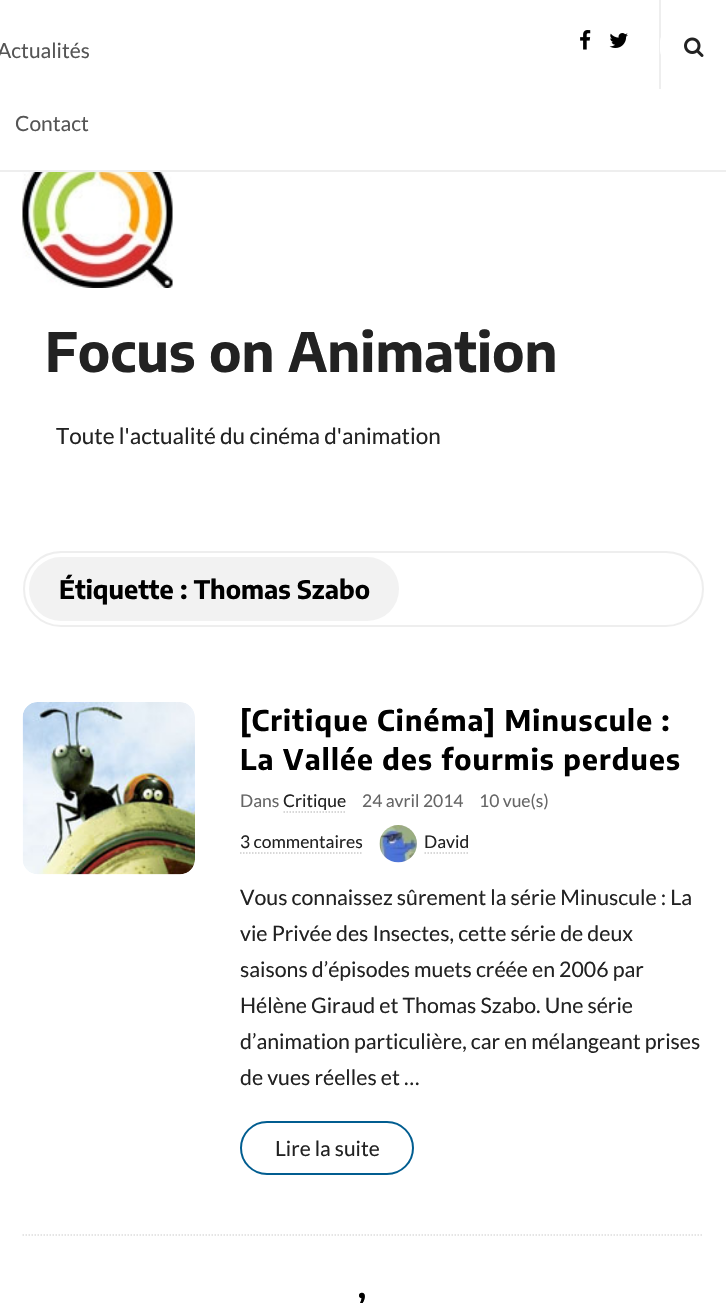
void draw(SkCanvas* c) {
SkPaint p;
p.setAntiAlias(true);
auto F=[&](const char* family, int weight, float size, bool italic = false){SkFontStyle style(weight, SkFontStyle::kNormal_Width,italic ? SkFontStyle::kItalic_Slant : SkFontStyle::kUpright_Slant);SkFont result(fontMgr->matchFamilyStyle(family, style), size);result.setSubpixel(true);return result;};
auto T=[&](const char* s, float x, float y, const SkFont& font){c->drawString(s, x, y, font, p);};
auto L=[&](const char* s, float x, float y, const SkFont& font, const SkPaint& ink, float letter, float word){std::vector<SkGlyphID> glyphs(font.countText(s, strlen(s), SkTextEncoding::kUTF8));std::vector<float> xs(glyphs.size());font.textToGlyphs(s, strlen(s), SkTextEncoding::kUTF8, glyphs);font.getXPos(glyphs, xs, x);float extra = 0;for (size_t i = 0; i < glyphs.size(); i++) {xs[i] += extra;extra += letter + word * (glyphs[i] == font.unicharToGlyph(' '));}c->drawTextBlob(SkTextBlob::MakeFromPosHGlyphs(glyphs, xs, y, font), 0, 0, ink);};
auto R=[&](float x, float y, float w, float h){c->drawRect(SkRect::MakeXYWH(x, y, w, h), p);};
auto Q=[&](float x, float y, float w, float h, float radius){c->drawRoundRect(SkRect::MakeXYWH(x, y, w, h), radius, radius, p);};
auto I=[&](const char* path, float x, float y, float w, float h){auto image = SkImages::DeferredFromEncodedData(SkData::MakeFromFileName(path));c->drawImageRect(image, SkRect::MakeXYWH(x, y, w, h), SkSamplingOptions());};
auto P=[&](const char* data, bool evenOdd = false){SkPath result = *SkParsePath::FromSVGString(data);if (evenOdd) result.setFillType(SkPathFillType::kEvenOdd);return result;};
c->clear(0xffffffff);
p.setColor(0xffeeeeee);
R(0,170,726,2);
auto f1 = F("Lato",400,21);
p.setColor(0xff555555);
T("Actualités",-3,58,f1);
T("Contact",15,131,f1);
I("1.png",580,30,11,20);
I("2.png",609,33,19,15);
p.setColor(0xffeeeeee);
R(659,0,2,89);
p.setColor(0xffffffff);
Q(660,33,44,26,8);
I("3.png",684,37,20,20);
I("4.png",22,172,151,116);
auto f2 = F("Encode Sans Condensed",700,54);
p.setColor(0xff222222);
T("Focus on Animation",45,372,f2);
auto f3 = F("Lato",400,22.5);
T("Toute l'actualité du cinéma d'animation",56,444,f3);
p.setStroke(true);
p.setStrokeWidth(2);
p.setColor(0xffeeeeee);
c->drawRoundRect(SkRect::MakeXYWH(24,552,679,74),37,37,p);
p.setStroke(false);
p.setColor(0xfff2f2f2);
Q(29,557,370,64,32);
auto f4 = F("Encode Sans Condensed",700,25.5);
p.setColor(0xff000000);
T("Étiquette : Thomas Szabo",59,599,f4);
p.setStroke(true);
p.setStrokeWidth(1.5);
p.setColor(0xffdddddd);
p.setPathEffect(SkDashPathEffect::Make({{1.5f,1.5f}}, 0));
c->drawPath(P("M22.5 1235h681"),p);
p.setPathEffect(nullptr);
I("5.png",22,702,173,173);
auto f5 = F("Encode Sans Condensed",700,28.5);
p.setStroke(false);
p.setColor(0xff000000);
L("[Critique Cinéma] Minuscule :",240,731,f5,p,1.2,0);
L("La Vallée des fourmis perdues",240,770,f5,p,1.2,0);
auto f6 = F("Lato",400,17.5);
p.setColor(0xff666666);
T("Dans",240,807,f6);
p.setColor(0xff222222);
T("Critique",283,807,f6);
p.setStroke(true);
p.setColor(0xffcccccc);
p.setPathEffect(SkDashPathEffect::Make({{1.5f,1.5f}}, 0));
c->drawPath(P("M283.5 812h61.5"),p);
p.setPathEffect(nullptr);
p.setStroke(false);
p.setColor(0xff666666);
T("24 avril 2014",362,807,f6);
T("10 vue(s)",479,807,f6);
p.setColor(0xff222222);
T("3 commentaires",240,848,f6);
p.setStroke(true);
p.setColor(0xffcccccc);
p.setPathEffect(SkDashPathEffect::Make({{1.5f,1.5f}}, 0));
c->drawPath(P("M240 853h123"),p);
p.setPathEffect(nullptr);
I("6.png",379,825,38,38);
p.setStroke(false);
p.setColor(0xff222222);
T("David",424,848,f6);
p.setStroke(true);
p.setColor(0xffcccccc);
p.setPathEffect(SkDashPathEffect::Make({{1.5f,1.5f}}, 0));
c->drawPath(P("M424.5 853h45"),p);
p.setPathEffect(nullptr);
auto f7 = F("Lato",400,21.3);
p.setStroke(false);
p.setColor(0xff222222);
T("Vous connaissez sûrement la série Minuscule : La",240,905,f7);
T("vie Privée des Insectes, cette série de deux",240,941,f7);
T("saisons d’épisodes muets créée en 2006 par",240,977,f7);
T("Hélène Giraud et Thomas Szabo. Une série",240,1013,f7);
T("d’animation particulière, car en mélangeant prises",240,1049,f7);
T("de vues réelles et …",240,1085,f7);
p.setStroke(true);
p.setStrokeWidth(2);
p.setColor(0xff015d90);
c->drawRoundRect(SkRect::MakeXYWH(241,1122,172,52),26,26,p);
p.setStroke(false);
p.setColor(0xff222222);
T("Lire la suite",275,1156,f1);
p.setColor(0xff000000);
L("’",358,1316,f5,p,1.2,0);
}
